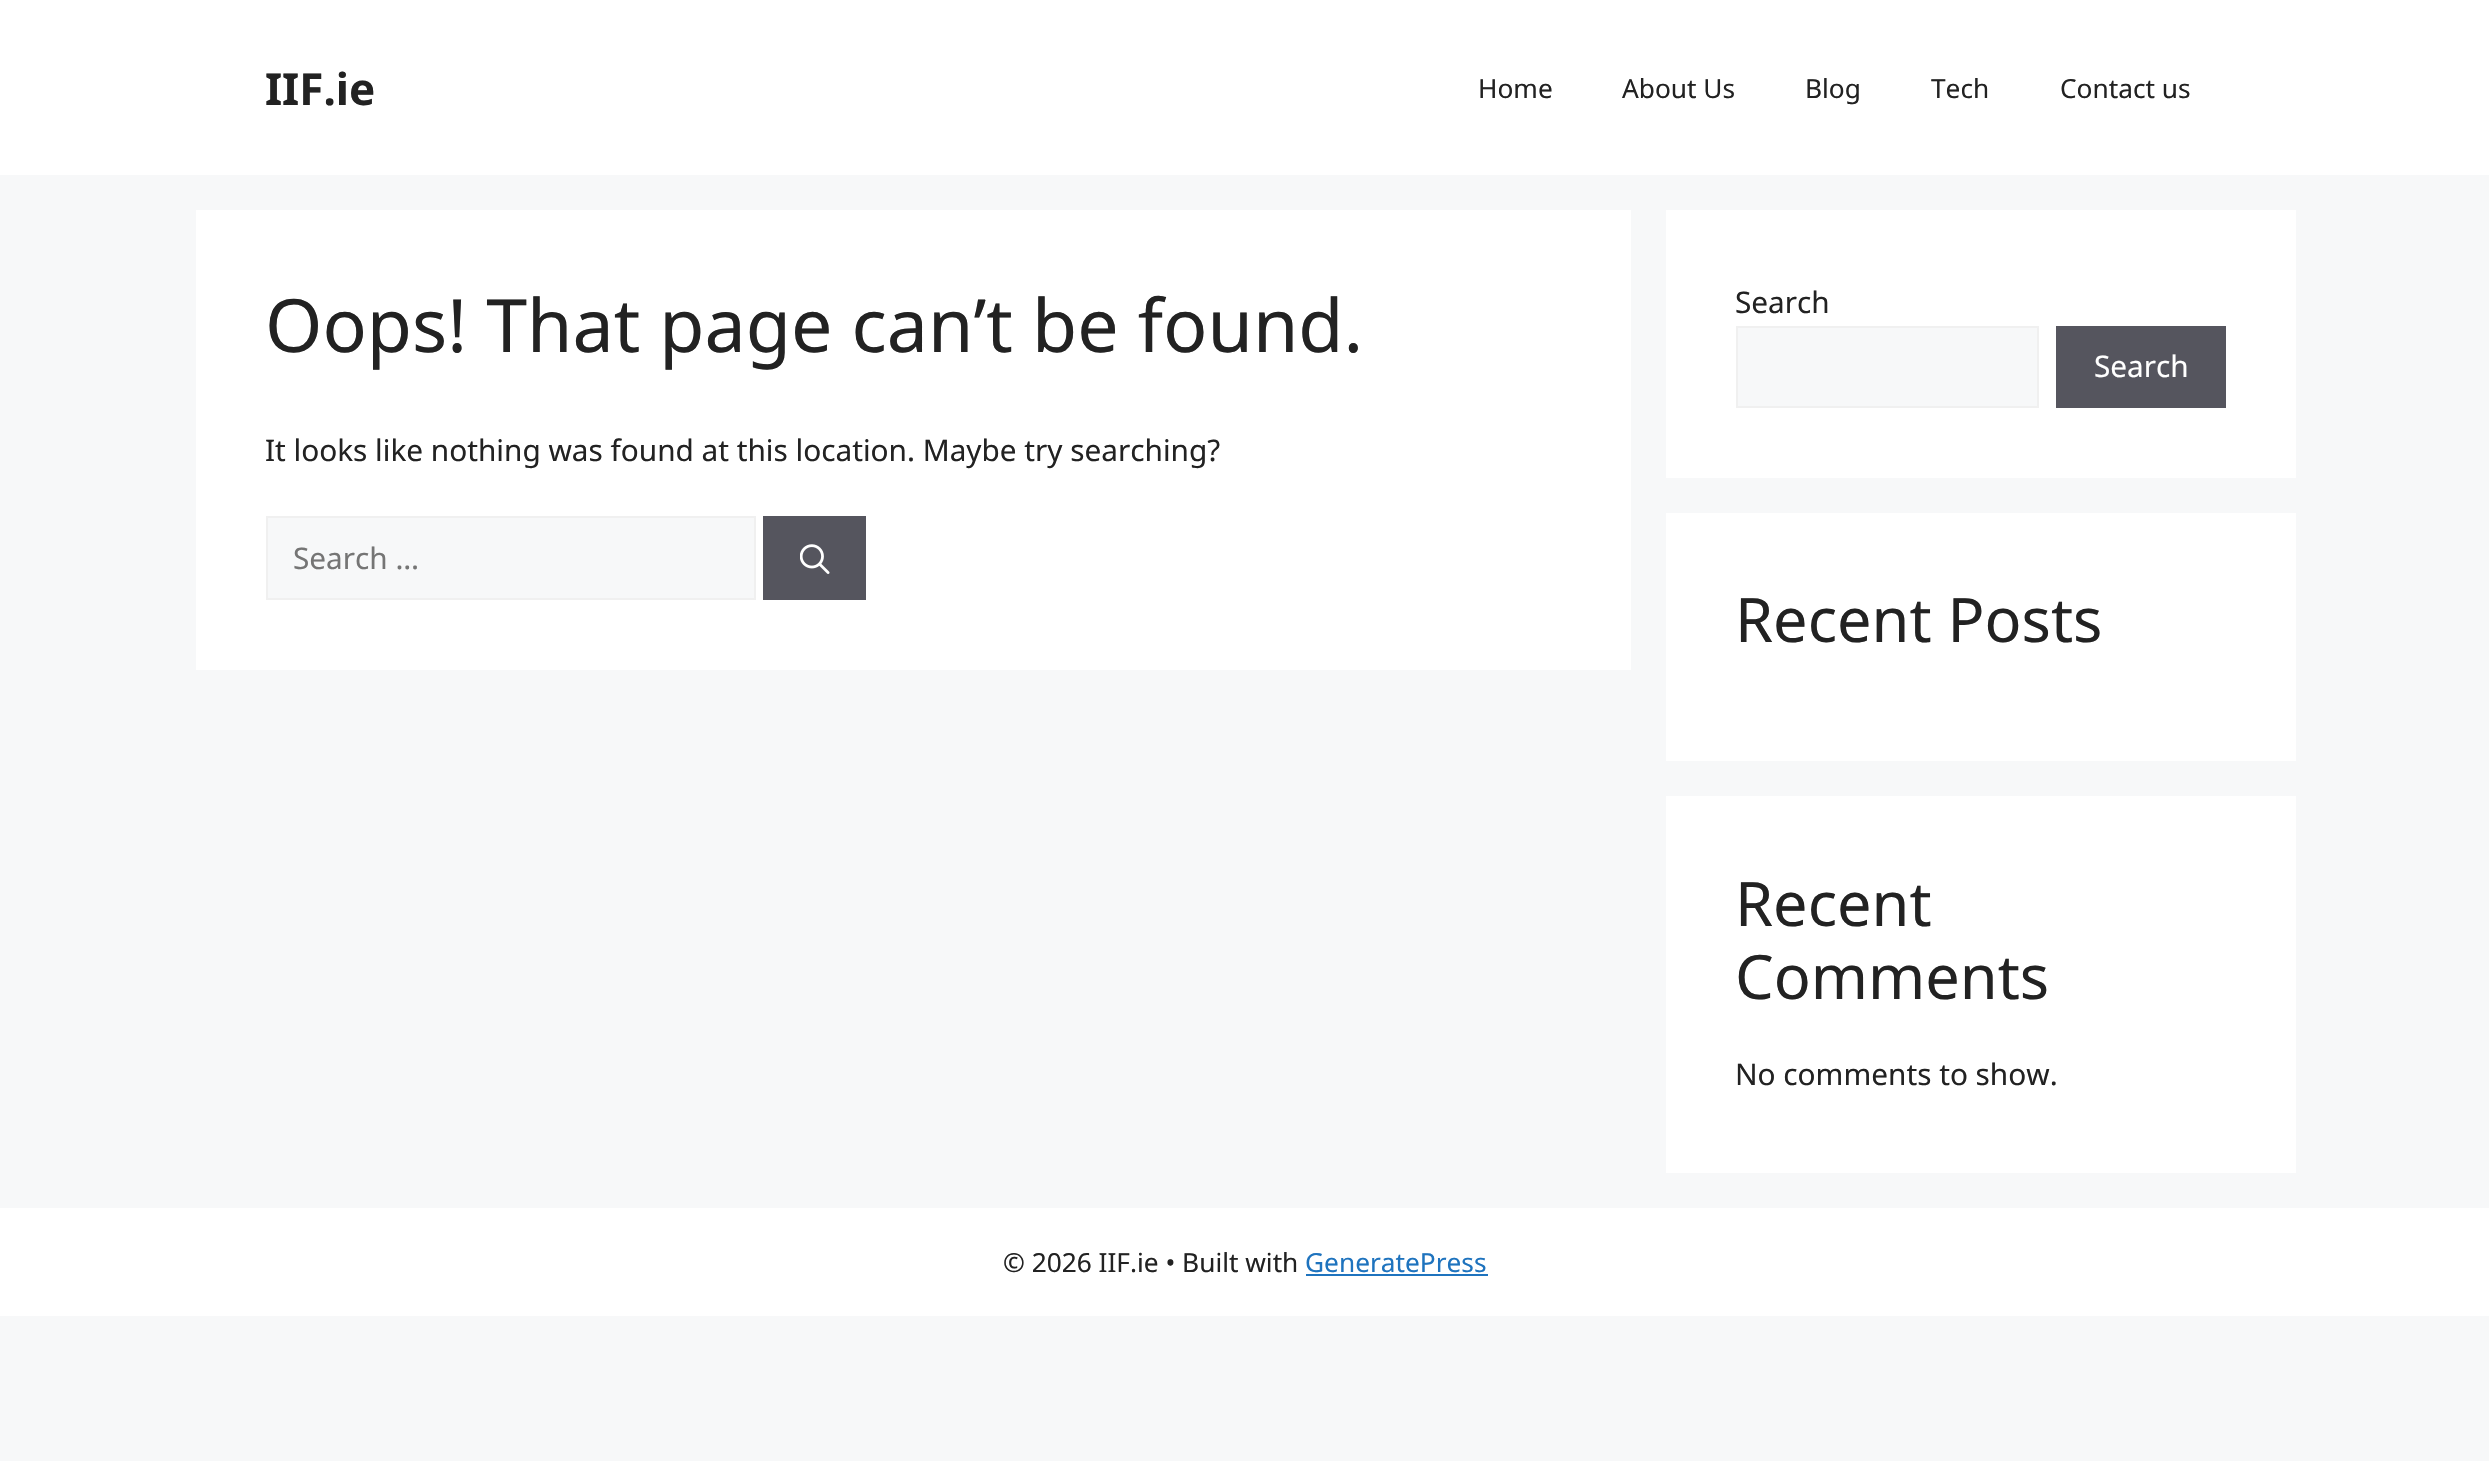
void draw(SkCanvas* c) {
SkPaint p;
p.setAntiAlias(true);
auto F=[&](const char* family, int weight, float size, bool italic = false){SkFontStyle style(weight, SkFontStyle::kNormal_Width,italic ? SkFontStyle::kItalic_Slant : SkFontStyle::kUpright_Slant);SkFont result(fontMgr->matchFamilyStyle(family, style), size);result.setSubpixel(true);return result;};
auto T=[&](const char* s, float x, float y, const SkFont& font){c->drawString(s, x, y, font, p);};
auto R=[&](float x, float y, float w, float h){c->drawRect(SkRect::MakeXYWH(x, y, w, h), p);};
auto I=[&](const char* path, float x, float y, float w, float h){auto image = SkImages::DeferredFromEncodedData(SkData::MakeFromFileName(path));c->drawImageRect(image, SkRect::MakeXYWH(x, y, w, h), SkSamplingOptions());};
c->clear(0xfff7f8f9);
p.setColor(0xffffffff);
R(0,0,2489,175);
auto f1 = F("Noto Sans",700,44);
p.setColor(0xff222222);
T("IIF.ie",265,105,f1);
auto f2 = F("Noto Sans",400,26.25);
T("Home",1478,98,f2);
T("About Us",1622,98,f2);
T("Blog",1805,98,f2);
T("Tech",1931,98,f2);
T("Contact us",2060,98,f2);
p.setColor(0xffffffff);
R(196,210,1435,460);
auto f3 = F("Noto Sans",400,73.5);
p.setColor(0xff222222);
T("Oops! That page can’t be found.",265,352,f3);
auto f4 = F("Noto Sans",400,29.75);
T("It looks like nothing was found at this location. Maybe try searching?",265,461,f4);
p.setColor(0xfff7f8f9);
c->drawRect(SkRect::MakeXYWH(267,517,488,82),p);
p.setStroke(true);
p.setStrokeWidth(2);
p.setColor(0xfff0f0f0);
c->drawRect(SkRect::MakeXYWH(267,517,488,82),p);
p.setStroke(false);
p.setColor(0xff757575);
T("Search …",293,569,f4);
p.setColor(0xff55555e);
R(763,516,103,84);
I("1.png",800,544,30,30);
p.setColor(0xffffffff);
R(1666,210,630,268);
p.setColor(0xff222222);
T("Search",1735,313,f4);
p.setColor(0xfff7f8f9);
c->drawRect(SkRect::MakeXYWH(1737,327,301,80),p);
p.setStroke(true);
p.setColor(0xfff0f0f0);
c->drawRect(SkRect::MakeXYWH(1737,327,301,80),p);
p.setStroke(false);
p.setColor(0xff55555e);
R(2056,326,170,82);
p.setColor(0xffffffff);
T("Search",2094,377,f4);
R(1666,513,630,248);
auto f5 = F("Noto Sans",400,61.25);
p.setColor(0xff222222);
T("Recent Posts",1735,642,f5);
p.setColor(0xffffffff);
R(1666,796,630,377);
p.setColor(0xff222222);
T("Recent",1735,926,f5);
T("Comments",1735,999,f5);
T("No comments to show.",1735,1085,f4);
p.setColor(0xffffffff);
R(0,1208,2489,108);
p.setColor(0xff222222);
T("© 2026 IIF.ie • Built with",1003,1272,f2);
p.setColor(0xff1e73be);
T("GeneratePress",1305,1272,f2);
R(1306,1274,182,2);
}
